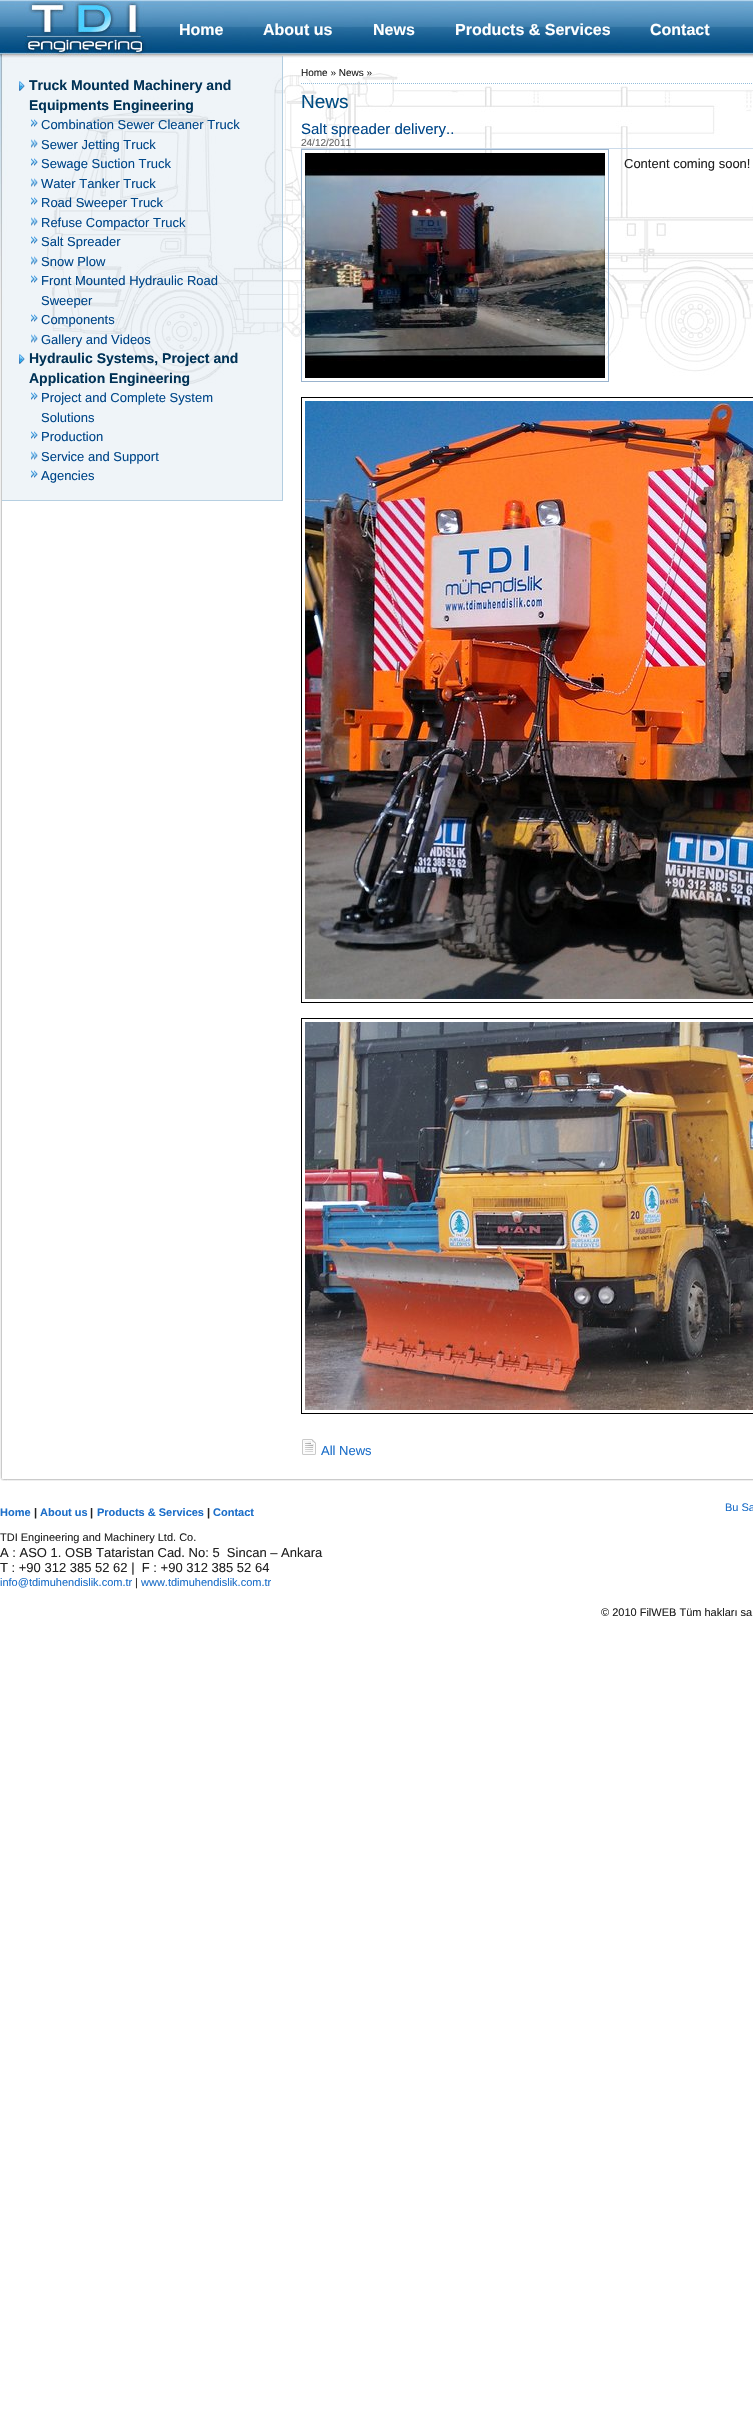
void draw(SkCanvas* c) {
SkPaint p;
p.setAntiAlias(true);
auto F=[&](const char* family, int weight, float size, bool italic = false){SkFontStyle style(weight, SkFontStyle::kNormal_Width,italic ? SkFontStyle::kItalic_Slant : SkFontStyle::kUpright_Slant);SkFont result(fontMgr->matchFamilyStyle(family, style), size);result.setSubpixel(true);return result;};
auto T=[&](const char* s, float x, float y, const SkFont& font){c->drawString(s, x, y, font, p);};
auto R=[&](float x, float y, float w, float h){c->drawRect(SkRect::MakeXYWH(x, y, w, h), p);};
auto I=[&](const char* path, float x, float y, float w, float h){auto image = SkImages::DeferredFromEncodedData(SkData::MakeFromFileName(path));c->drawImageRect(image, SkRect::MakeXYWH(x, y, w, h), SkSamplingOptions());};
auto P=[&](const char* data, bool evenOdd = false){SkPath result = *SkParsePath::FromSVGString(data);if (evenOdd) result.setFillType(SkPathFillType::kEvenOdd);return result;};
c->clear(0xffffffff);
I("1.png",0,385,753,1085);
I("2.png",0,0,753,385);
auto f1 = F("Liberation Sans",700,16);
p.setColor(0xffffffff);
T("Home",179,35,f1);
T("About us",263,35,f1);
T("News",373,35,f1);
T("Products & Services",455,35,f1);
T("Contact",650,35,f1);
p.setColor(0x299bbbd3);
R(2,56,280,444);
p.setColor(0xffb2cde0);
R(282,56,1,445);
p.setColor(0xffb6cfe1);
R(2,500,281,1);
I("3.png",19,81,6,10);
auto f2 = F("Liberation Sans",700,14);
p.setColor(0xff003256);
T("Truck Mounted Machinery and",29,90,f2);
T("Equipments Engineering",29,110,f2);
I("4.png",31,119,7,8);
auto f3 = F("Liberation Sans",400,13);
p.setColor(0xff004789);
T("Combination Sewer Cleaner Truck",41,129,f3);
I("5.png",31,139,7,9);
T("Sewer Jetting Truck",41,149,f3);
I("4.png",31,158,7,8);
T("Sewage Suction Truck",41,168,f3);
I("5.png",31,178,7,9);
T("Water Tanker Truck",41,188,f3);
I("4.png",31,197,7,8);
T("Road Sweeper Truck",41,207,f3);
I("5.png",31,217,7,9);
T("Refuse Compactor Truck",41,227,f3);
I("4.png",31,236,7,8);
T("Salt Spreader",41,246,f3);
I("5.png",31,256,7,9);
T("Snow Plow",41,266,f3);
I("4.png",31,275,7,8);
T("Front Mounted Hydraulic Road",41,285,f3);
T("Sweeper",41,305,f3);
I("4.png",31,314,7,8);
T("Components",41,324,f3);
I("5.png",31,334,7,9);
T("Gallery and Videos",41,344,f3);
I("3.png",19,354,6,10);
p.setColor(0xff003256);
T("Hydraulic Systems, Project and",29,363,f2);
T("Application Engineering",29,383,f2);
I("4.png",31,392,7,8);
p.setColor(0xff004789);
T("Project and Complete System",41,402,f3);
T("Solutions",41,422,f3);
I("4.png",31,431,7,8);
T("Production",41,441,f3);
I("5.png",31,451,7,9);
T("Service and Support",41,461,f3);
I("4.png",31,470,7,8);
T("Agencies",41,480,f3);
p.setStroke(true);
p.setStrokeWidth(1);
p.setColor(0xff93bddb);
p.setPathEffect(SkDashPathEffect::Make({{1,1}}, 0));
c->drawPath(P("M301 83.5h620"),p);
p.setPathEffect(nullptr);
auto f4 = F("Liberation Sans",400,10);
p.setStroke(false);
p.setColor(0xff222222);
T("Home » News »",301,76,f4);
auto f5 = F("Liberation Sans",400,19);
p.setColor(0xff004c82);
T("News",301,108,f5);
p.setColor(0xffccdbea);
R(301,148,452,1);
auto f6 = F("Liberation Sans",400,15);
p.setColor(0xff004789);
T("Salt spreader delivery..",301,134,f6);
p.setColor(0xff666666);
T("24/12/2011",301,146,f4);
p.setStroke(true);
p.setColor(0xff99b3ce);
c->drawRect(SkRect::MakeXYWH(301.5,149.5,307,232),p);
I("6.png",305,153,300,225);
p.setStroke(false);
p.setColor(0xff222222);
T("Content coming soon!",624,168,f3);
p.setStroke(true);
p.setColor(0xff000000);
c->drawRect(SkRect::MakeXYWH(301.5,397.5,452,605),p);
I("7.png",305,401,448,598);
c->drawRect(SkRect::MakeXYWH(301.5,1018.5,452,395),p);
I("8.png",305,1022,448,388);
I("9.png",302,1439,14,16);
p.setStroke(false);
p.setColor(0xff1d6fc9);
T("All News",321,1455,f3);
I("10.png",0,1470,753,11);
auto f7 = F("Liberation Sans",700,11);
T("Home",0,1516,f7);
p.setColor(0xff222222);
T("|",34,1516,f7);
p.setColor(0xff1d6fc9);
T("About us",40,1516,f7);
p.setColor(0xff222222);
T("|",90,1516,f7);
p.setColor(0xff1d6fc9);
T("Products & Services",97,1516,f7);
p.setColor(0xff222222);
T("|",207,1516,f7);
p.setColor(0xff1d6fc9);
T("Contact",213,1516,f7);
auto f8 = F("Liberation Sans",400,11);
T("Bu Sa",725,1511,f8);
p.setColor(0xff222222);
T("TDI Engineering and Machinery Ltd. Co.",0,1541,f8);
T("A : ASO 1. OSB Tataristan Cad. No: 5  Sincan – Ankara",0,1557,f3);
T("T : +90 312 385 52 62 |  F : +90 312 385 52 64",0,1572,f3);
p.setColor(0xff1d6fc9);
T("info@tdimuhendislik.com.tr",0,1586,f8);
p.setColor(0xff222222);
T("|",135,1586,f8);
p.setColor(0xff1d6fc9);
T("www.tdimuhendislik.com.tr",141,1586,f8);
p.setColor(0xff222222);
T("© 2010 FilWEB Tüm hakları sa",601,1616,f8);
}
